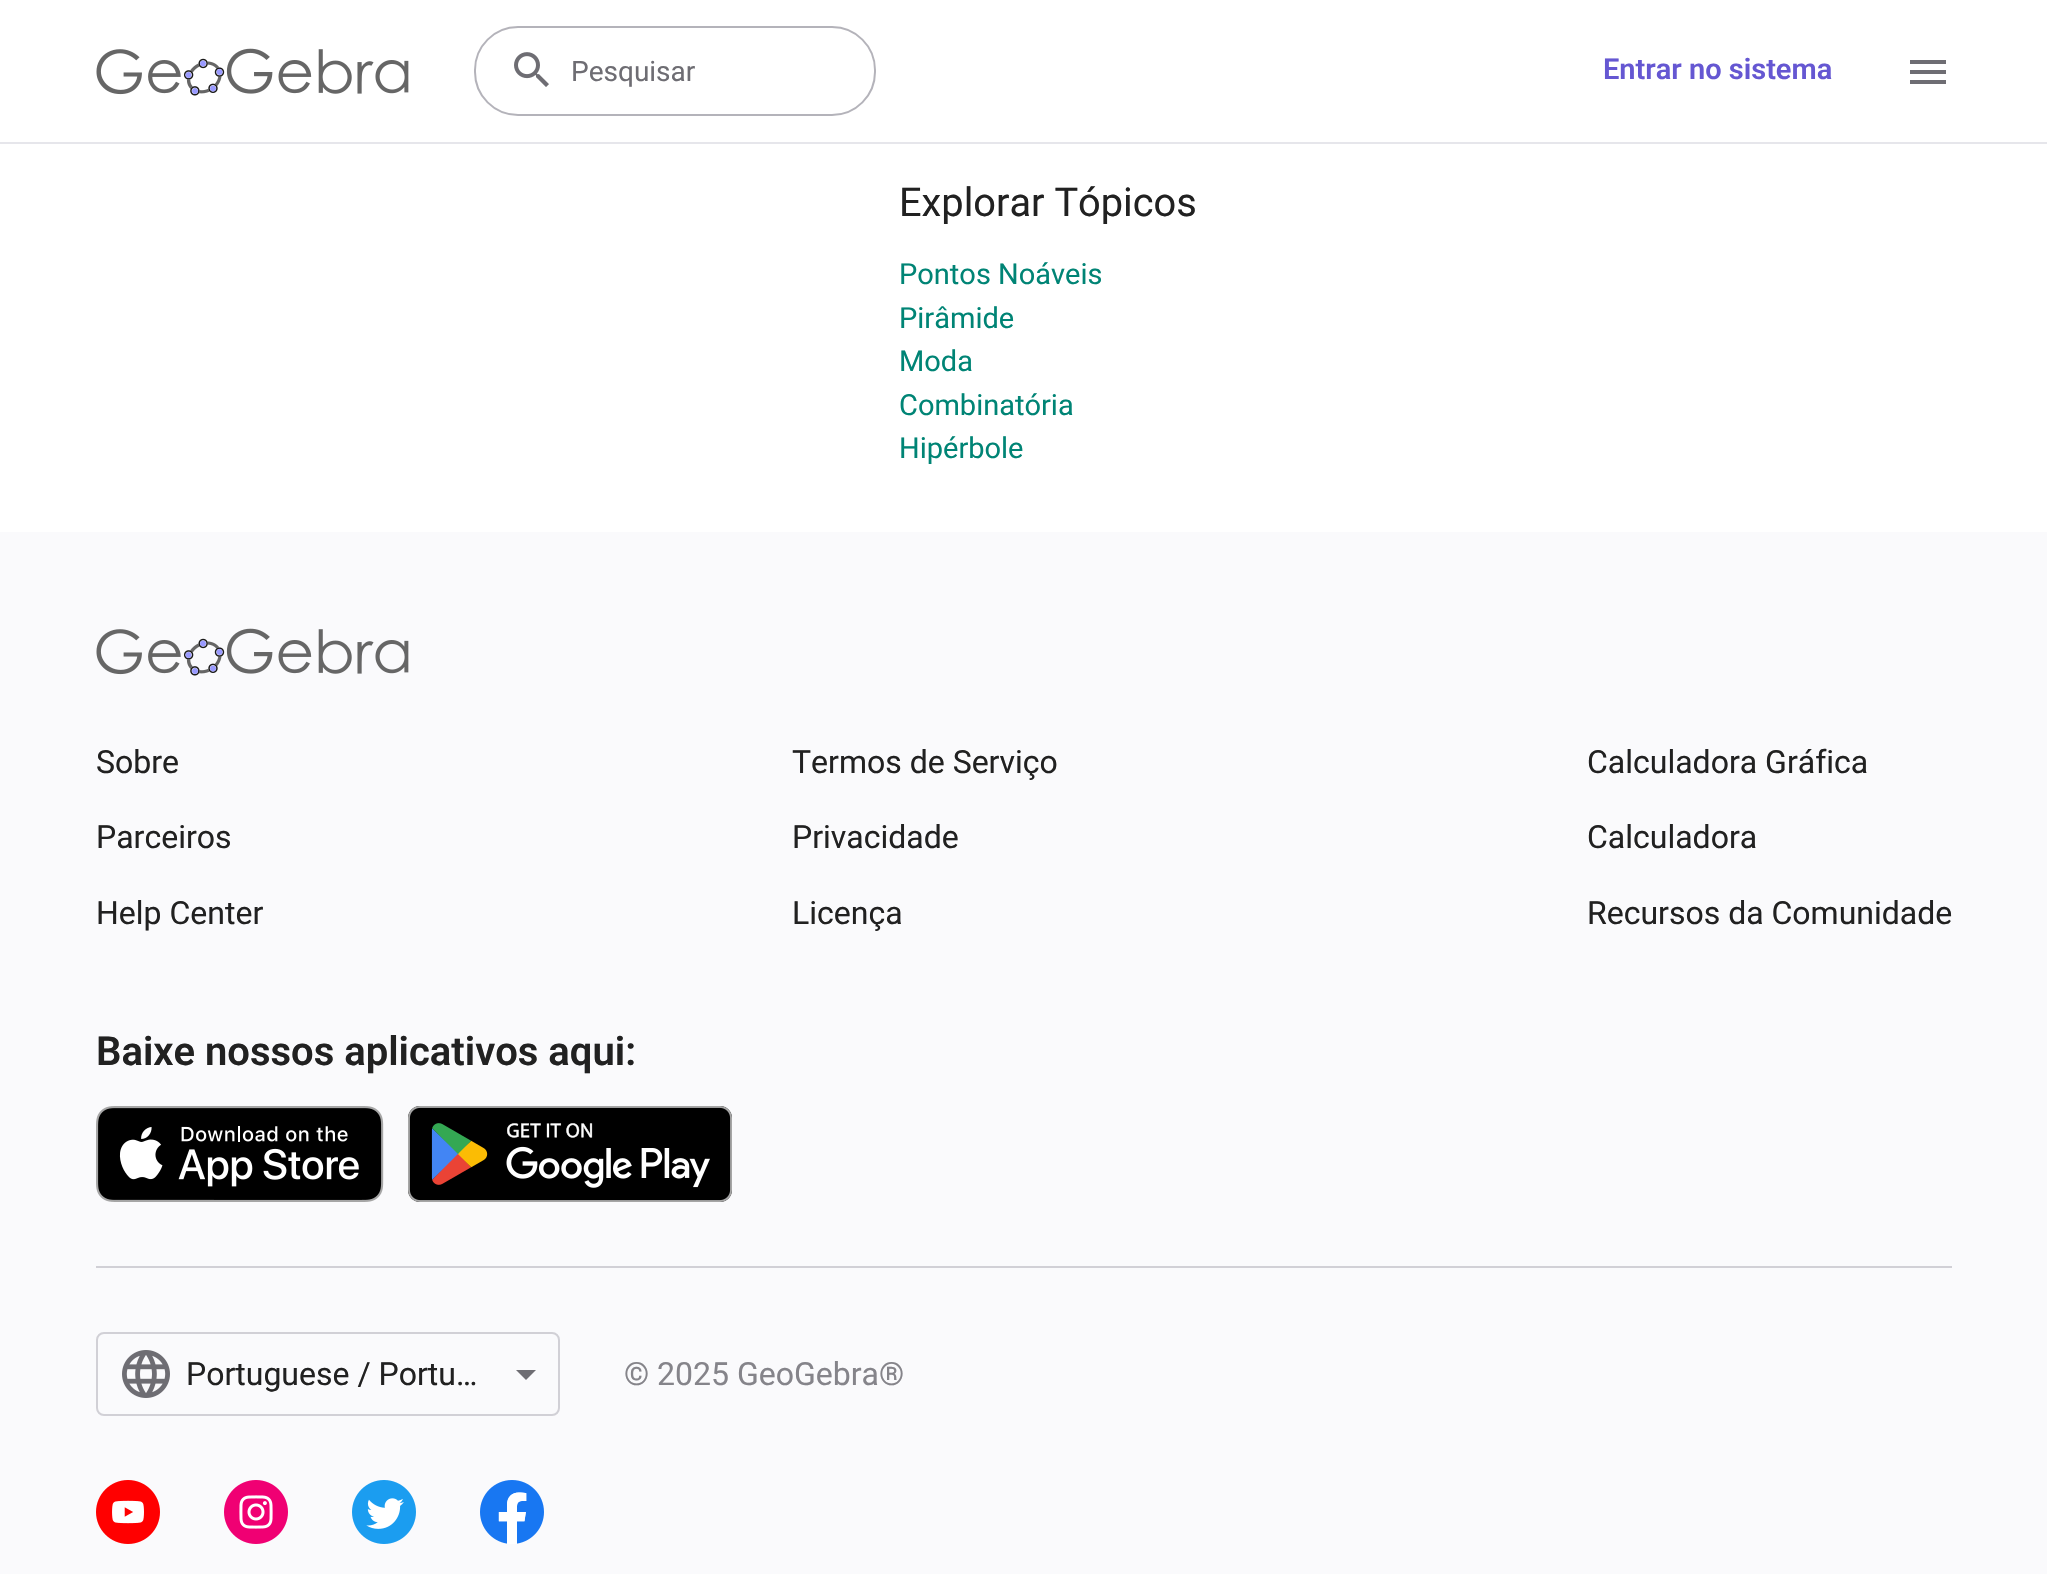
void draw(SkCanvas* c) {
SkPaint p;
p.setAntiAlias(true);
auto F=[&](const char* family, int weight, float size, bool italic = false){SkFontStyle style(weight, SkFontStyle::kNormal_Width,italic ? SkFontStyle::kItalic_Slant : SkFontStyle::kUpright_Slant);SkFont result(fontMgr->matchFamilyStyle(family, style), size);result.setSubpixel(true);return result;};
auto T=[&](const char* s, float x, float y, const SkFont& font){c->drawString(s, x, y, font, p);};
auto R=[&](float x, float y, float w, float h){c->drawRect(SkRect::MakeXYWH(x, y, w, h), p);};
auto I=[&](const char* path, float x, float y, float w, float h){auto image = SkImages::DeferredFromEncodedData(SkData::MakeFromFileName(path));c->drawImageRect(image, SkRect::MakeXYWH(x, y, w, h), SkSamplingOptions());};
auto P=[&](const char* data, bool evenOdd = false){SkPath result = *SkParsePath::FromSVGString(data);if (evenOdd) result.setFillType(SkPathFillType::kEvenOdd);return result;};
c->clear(0xffffffff);
p.setColor(0xffe6e6eb);
R(0,142,2047,2);
I("1.png",96,48,313,48);
p.setStroke(true);
p.setStrokeWidth(2);
p.setColor(0xffb4b3ba);
c->drawRoundRect(SkRect::MakeXYWH(475,27,400,88),43,43,p);
I("2.png",514,52,35,35);
auto f1 = F("Roboto",400,28);
p.setStroke(false);
p.setColor(0xff6e6d73);
T("Pesquisar",571,81,f1);
auto f2 = F("Roboto",600,29);
p.setColor(0xff6557d2);
T("Entrar no sistema",1603,79,f2);
I("3.png",1910,60,36,24);
auto f3 = F("Roboto",400,39.75);
p.setColor(0xff212121);
T("Explorar Tópicos",899,216,f3);
auto f4 = F("Roboto",400,29);
p.setColor(0xff008475);
T("Pontos Noáveis",899,284,f4);
T("Pirâmide",899,328,f4);
T("Moda",899,371,f4);
T("Combinatória",899,415,f4);
T("Hipérbole",899,458,f4);
p.setColor(0xfffafafc);
R(0,532,2047,1042);
I("4.png",96,628,313,48);
auto f5 = F("Roboto",400,32);
p.setColor(0xff212121);
T("Sobre",96,773,f5);
T("Parceiros",96,848,f5);
T("Help Center",96,924,f5);
T("Termos de Serviço",792,773,f5);
T("Privacidade",792,848,f5);
T("Licença",792,924,f5);
T("Calculadora Gráfica",1587,773,f5);
T("Calculadora",1587,848,f5);
T("Recursos da Comunidade",1587,924,f5);
auto f6 = F("Roboto",600,40);
T("Baixe nossos aplicativos aqui:",96,1065,f6);
I("5.png",96,1106,288,96);
I("6.png",408,1106,324,96);
p.setColor(0xffd1d0d6);
R(96,1266,1856,2);
p.setStroke(true);
c->drawRoundRect(SkRect::MakeXYWH(97,1333,462,82),7,7,p);
I("7.png",122,1350,48,48);
p.setStroke(false);
p.setColor(0xff212121);
T("Portuguese / Portu…",186,1385,f5);
p.setColor(0xff6e6d73);
c->drawPath(P("M516 1370l10 10l10-10z"),p);
p.setColor(0xff85848a);
T("© 2025 GeoGebra®",624,1385,f5);
I("8.png",96,1480,64,64);
I("9.png",224,1480,64,64);
I("10.png",352,1480,64,64);
I("11.png",480,1480,64,64);
}
